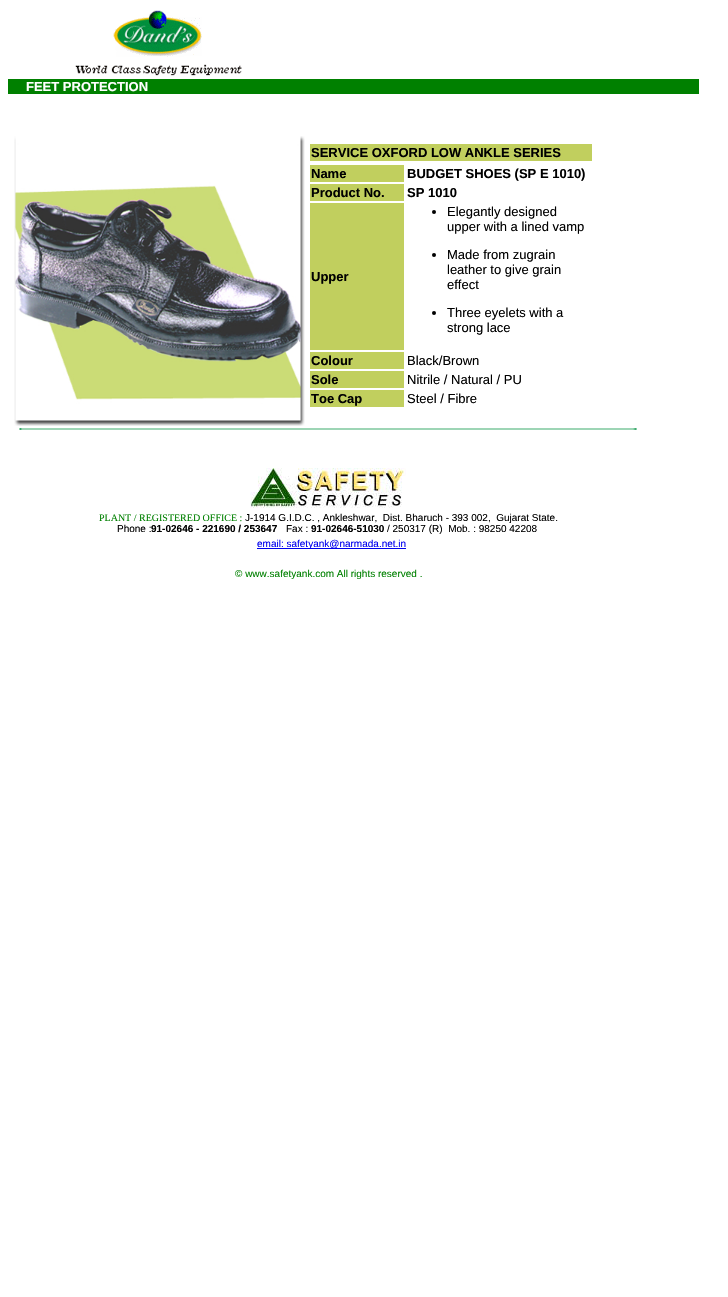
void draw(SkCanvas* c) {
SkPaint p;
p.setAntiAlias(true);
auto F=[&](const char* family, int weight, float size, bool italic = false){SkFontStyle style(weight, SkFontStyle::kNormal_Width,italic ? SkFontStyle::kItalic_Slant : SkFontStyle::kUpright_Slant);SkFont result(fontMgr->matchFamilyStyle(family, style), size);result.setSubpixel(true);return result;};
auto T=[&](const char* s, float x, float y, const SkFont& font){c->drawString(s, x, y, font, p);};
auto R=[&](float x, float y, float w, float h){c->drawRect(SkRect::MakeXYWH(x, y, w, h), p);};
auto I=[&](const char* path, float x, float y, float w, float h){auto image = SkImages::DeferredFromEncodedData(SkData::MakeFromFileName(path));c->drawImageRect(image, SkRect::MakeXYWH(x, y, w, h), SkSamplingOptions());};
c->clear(0xffffffff);
I("1.png",113,10,89,47);
I("2.png",75,64,167,12);
p.setColor(0xff008000);
R(8,79,691,15);
auto f1 = F("Liberation Sans",700,13);
p.setColor(0xffffffff);
T("FEET PROTECTION",26,91,f1);
I("3.png",14,136,291,290);
p.setColor(0xffc1cf5e);
R(310,144,282,17);
p.setColor(0xff000000);
T("SERVICE OXFORD LOW ANKLE SERIES",311,157,f1);
p.setColor(0xffc1cf5e);
R(310,165,94,17);
p.setColor(0xff000000);
T("Name",311,178,f1);
T("BUDGET SHOES (SP E 1010)",407,178,f1);
p.setColor(0xffc1cf5e);
R(310,184,94,17);
p.setColor(0xff000000);
T("Product No.",311,197,f1);
T("SP 1010",407,197,f1);
p.setColor(0xffc1cf5e);
R(310,203,94,147);
p.setColor(0xff000000);
T("Upper",311,281,f1);
c->drawCircle(434,212,2,p);
auto f2 = F("Liberation Sans",400,13);
T("Elegantly designed",447,216,f2);
T("upper with a lined vamp",447,231,f2);
c->drawCircle(434,255,2,p);
T("Made from zugrain",447,259,f2);
T("leather to give grain",447,274,f2);
T("effect",447,289,f2);
c->drawCircle(434,313,2,p);
T("Three eyelets with a",447,317,f2);
T("strong lace",447,332,f2);
p.setColor(0xffc1cf5e);
R(310,352,94,17);
p.setColor(0xff000000);
T("Colour",311,365,f1);
T("Black/Brown",407,365,f2);
p.setColor(0xffc1cf5e);
R(310,371,94,17);
p.setColor(0xff000000);
T("Sole",311,384,f1);
T("Nitrile / Natural / PU",407,384,f2);
p.setColor(0xffc1cf5e);
R(310,390,94,17);
p.setColor(0xff000000);
T("Toe Cap",311,403,f1);
T("Steel / Fibre",407,403,f2);
I("4.png",19,428,618,2);
I("5.png",250,468,156,40);
auto f3 = F("Liberation Serif",400,10);
p.setColor(0xff008000);
T("PLANT / REGISTERED OFFICE :",99,521,f3);
auto f4 = F("Liberation Sans",400,10);
p.setColor(0xff000000);
T("J-1914 G.I.D.C. , Ankleshwar,  Dist. Bharuch - 393 002,  Gujarat State.",245,521,f4);
T("Phone :",117,532,f4);
auto f5 = F("Liberation Sans",700,10);
T("91-02646 - 221690 / 253647",151,532,f5);
T("Fax :",286,532,f4);
T("91-02646-51030",311,532,f5);
T("/ 250317 (R)  Mob. : 98250 42208",387,532,f4);
p.setColor(0xff0000ee);
R(257,548,149,1);
T("email: safetyank@narmada.net.in",257,547,f4);
p.setColor(0xff008000);
T("© www.safetyank.com All rights reserved .",235,577,f4);
}
